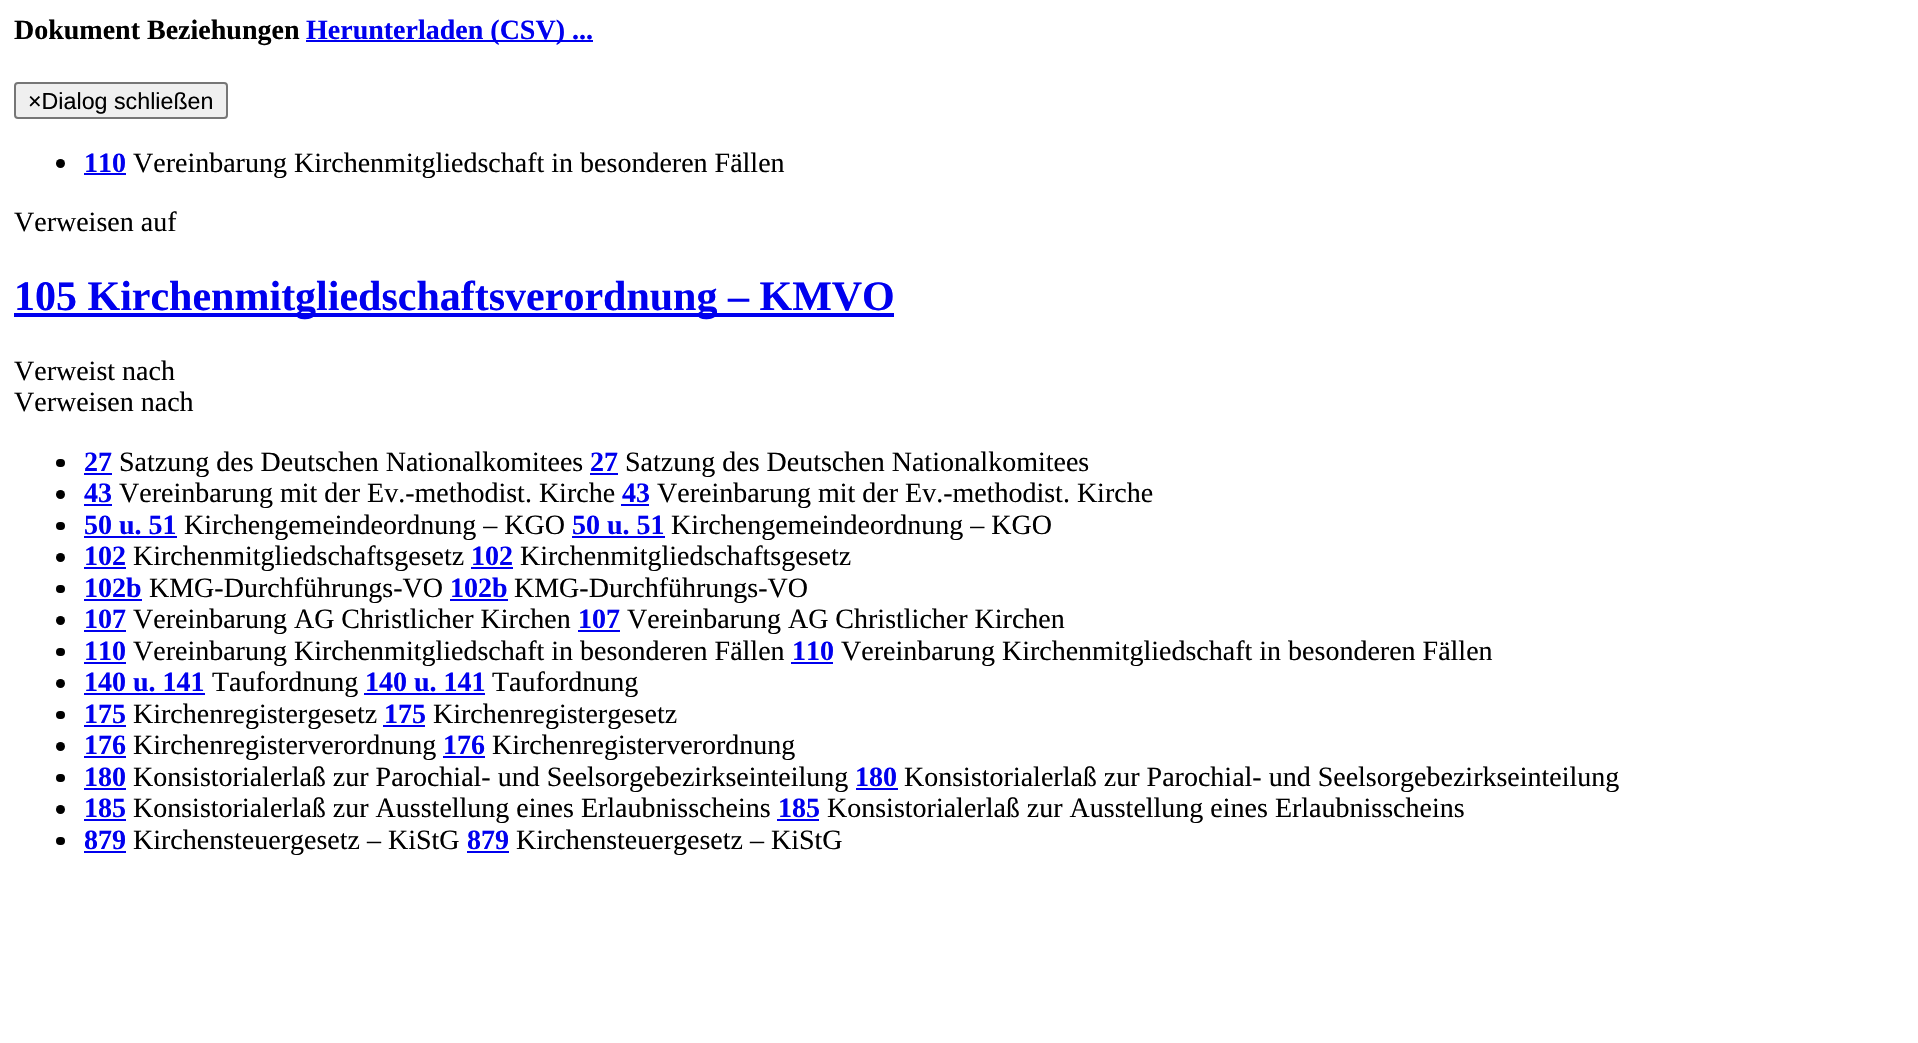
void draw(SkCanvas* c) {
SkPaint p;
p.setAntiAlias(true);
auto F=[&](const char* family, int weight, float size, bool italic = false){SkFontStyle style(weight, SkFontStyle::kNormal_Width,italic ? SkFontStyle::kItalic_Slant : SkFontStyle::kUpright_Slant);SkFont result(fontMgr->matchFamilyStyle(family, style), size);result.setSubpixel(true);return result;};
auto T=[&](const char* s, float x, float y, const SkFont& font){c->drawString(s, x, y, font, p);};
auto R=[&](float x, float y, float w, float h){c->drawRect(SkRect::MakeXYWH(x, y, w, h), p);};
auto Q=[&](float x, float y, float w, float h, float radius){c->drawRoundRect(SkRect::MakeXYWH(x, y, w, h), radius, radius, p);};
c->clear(0xffffffff);
auto f1 = F("Liberation Serif",700,28);
p.setColor(0xff000000);
T("Dokument Beziehungen",14,39,f1);
p.setColor(0xff0000ee);
R(306,40,287,2);
T("Herunterladen (CSV) ...",306,39,f1);
p.setColor(0xffefefef);
c->drawRoundRect(SkRect::MakeXYWH(15,83,212,35),3,3,p);
p.setStroke(true);
p.setStrokeWidth(2);
p.setColor(0xff767676);
c->drawRoundRect(SkRect::MakeXYWH(15,83,212,35),3,3,p);
auto f2 = F("Liberation Sans",400,23.25);
p.setStroke(false);
p.setColor(0xff000000);
T("×Dialog schließen",28,109,f2);
c->drawCircle(60.5,163.5,4.5,p);
p.setColor(0xff0000ee);
T("110",84,172,f1);
R(84,173,42,2);
auto f3 = F("Liberation Serif",400,28);
p.setColor(0xff000000);
T("Vereinbarung Kirchenmitgliedschaft in besonderen Fällen",133,172,f3);
T("Verweisen auf",14,231,f3);
p.setColor(0xff0000ee);
R(14,313,880,4);
auto f4 = F("Liberation Serif",700,42);
T("105 Kirchenmitgliedschaftsverordnung – KMVO",14,310,f4);
p.setColor(0xff000000);
T("Verweist nach",14,380,f3);
T("Verweisen nach",14,411,f3);
Q(56,459,9,8,4);
p.setColor(0xff0000ee);
T("27",84,471,f1);
R(84,473,28,2);
p.setColor(0xff000000);
T("Satzung des Deutschen Nationalkomitees",119,471,f3);
p.setColor(0xff0000ee);
T("27",590,471,f1);
R(590,473,28,2);
p.setColor(0xff000000);
T("Satzung des Deutschen Nationalkomitees",625,471,f3);
c->drawCircle(60.5,494.5,4.5,p);
p.setColor(0xff0000ee);
T("43",84,502,f1);
R(84,504,28,2);
p.setColor(0xff000000);
T("Vereinbarung mit der Ev.-methodist. Kirche",119,502,f3);
p.setColor(0xff0000ee);
T("43",622,502,f1);
R(621,504,28,2);
p.setColor(0xff000000);
T("Vereinbarung mit der Ev.-methodist. Kirche",657,502,f3);
Q(56,522,9,8,4);
p.setColor(0xff0000ee);
T("50 u. 51",84,534,f1);
R(84,536,93,2);
p.setColor(0xff000000);
T("Kirchengemeindeordnung – KGO",184,534,f3);
p.setColor(0xff0000ee);
T("50 u. 51",572,534,f1);
R(572,536,93,2);
p.setColor(0xff000000);
T("Kirchengemeindeordnung – KGO",671,534,f3);
c->drawCircle(60.5,557.5,4.5,p);
p.setColor(0xff0000ee);
T("102",84,565,f1);
R(84,567,42,2);
p.setColor(0xff000000);
T("Kirchenmitgliedschaftsgesetz",133,565,f3);
p.setColor(0xff0000ee);
T("102",471,565,f1);
R(471,567,42,2);
p.setColor(0xff000000);
T("Kirchenmitgliedschaftsgesetz",520,565,f3);
Q(56,585,9,8,4);
p.setColor(0xff0000ee);
T("102b",84,597,f1);
R(84,599,58,2);
p.setColor(0xff000000);
T("KMG-Durchführungs-VO",149,597,f3);
p.setColor(0xff0000ee);
T("102b",450,597,f1);
R(450,599,58,2);
p.setColor(0xff000000);
T("KMG-Durchführungs-VO",514,597,f3);
c->drawCircle(60.5,620.5,4.5,p);
p.setColor(0xff0000ee);
T("107",84,628,f1);
R(84,630,42,2);
p.setColor(0xff000000);
T("Vereinbarung AG Christlicher Kirchen",133,628,f3);
p.setColor(0xff0000ee);
T("107",578,628,f1);
R(578,630,42,2);
p.setColor(0xff000000);
T("Vereinbarung AG Christlicher Kirchen",627,628,f3);
Q(56,648,9,8,4);
p.setColor(0xff0000ee);
T("110",84,660,f1);
R(84,662,42,2);
p.setColor(0xff000000);
T("Vereinbarung Kirchenmitgliedschaft in besonderen Fällen",133,660,f3);
p.setColor(0xff0000ee);
T("110",792,660,f1);
R(791,662,42,2);
p.setColor(0xff000000);
T("Vereinbarung Kirchenmitgliedschaft in besonderen Fällen",841,660,f3);
c->drawCircle(60.5,683.5,4.5,p);
p.setColor(0xff0000ee);
T("140 u. 141",84,691,f1);
R(84,693,121,2);
p.setColor(0xff000000);
T("Taufordnung",212,691,f3);
p.setColor(0xff0000ee);
T("140 u. 141",365,691,f1);
R(364,693,121,2);
p.setColor(0xff000000);
T("Taufordnung",492,691,f3);
Q(56,711,9,8,4);
p.setColor(0xff0000ee);
T("175",84,723,f1);
R(84,725,42,2);
p.setColor(0xff000000);
T("Kirchenregistergesetz",133,723,f3);
p.setColor(0xff0000ee);
T("175",384,723,f1);
R(383,725,42,2);
p.setColor(0xff000000);
T("Kirchenregistergesetz",433,723,f3);
c->drawCircle(60.5,746.5,4.5,p);
p.setColor(0xff0000ee);
T("176",84,754,f1);
R(84,756,42,2);
p.setColor(0xff000000);
T("Kirchenregisterverordnung",133,754,f3);
p.setColor(0xff0000ee);
T("176",443,754,f1);
R(443,756,42,2);
p.setColor(0xff000000);
T("Kirchenregisterverordnung",492,754,f3);
Q(56,774,9,8,4);
p.setColor(0xff0000ee);
T("180",84,786,f1);
R(84,788,42,2);
p.setColor(0xff000000);
T("Konsistorialerlaß zur Parochial- und Seelsorgebezirkseinteilung",133,786,f3);
p.setColor(0xff0000ee);
T("180",855,786,f1);
R(856,788,42,2);
p.setColor(0xff000000);
T("Konsistorialerlaß zur Parochial- und Seelsorgebezirkseinteilung",904,786,f3);
c->drawCircle(60.5,809.5,4.5,p);
p.setColor(0xff0000ee);
T("185",84,817,f1);
R(84,819,42,2);
p.setColor(0xff000000);
T("Konsistorialerlaß zur Ausstellung eines Erlaubnisscheins",133,817,f3);
p.setColor(0xff0000ee);
T("185",778,817,f1);
R(777,819,42,2);
p.setColor(0xff000000);
T("Konsistorialerlaß zur Ausstellung eines Erlaubnisscheins",827,817,f3);
Q(56,837,9,8,4);
p.setColor(0xff0000ee);
T("879",84,849,f1);
R(84,851,42,2);
p.setColor(0xff000000);
T("Kirchensteuergesetz – KiStG",133,849,f3);
p.setColor(0xff0000ee);
T("879",467,849,f1);
R(467,851,42,2);
p.setColor(0xff000000);
T("Kirchensteuergesetz – KiStG",516,849,f3);
}
